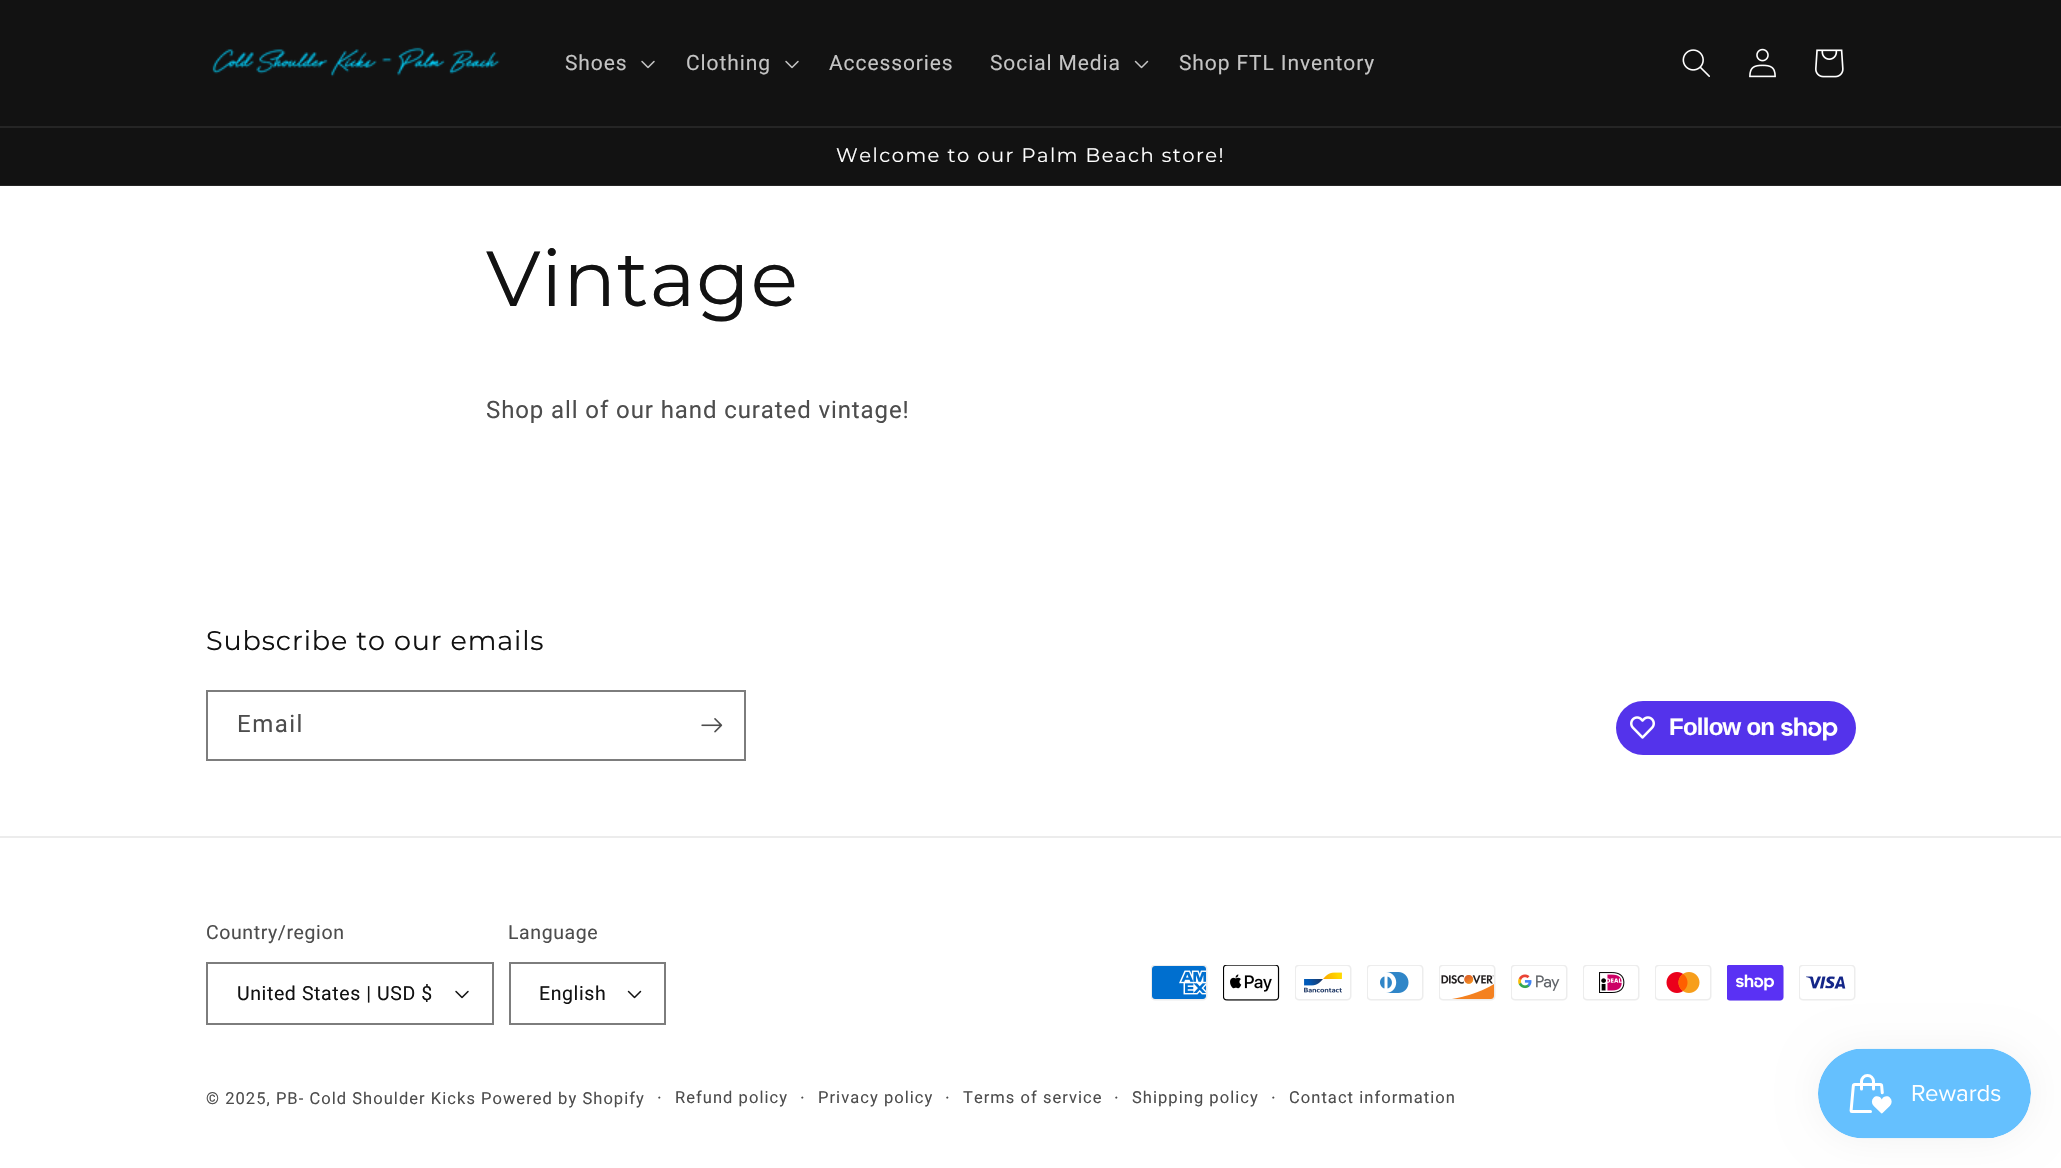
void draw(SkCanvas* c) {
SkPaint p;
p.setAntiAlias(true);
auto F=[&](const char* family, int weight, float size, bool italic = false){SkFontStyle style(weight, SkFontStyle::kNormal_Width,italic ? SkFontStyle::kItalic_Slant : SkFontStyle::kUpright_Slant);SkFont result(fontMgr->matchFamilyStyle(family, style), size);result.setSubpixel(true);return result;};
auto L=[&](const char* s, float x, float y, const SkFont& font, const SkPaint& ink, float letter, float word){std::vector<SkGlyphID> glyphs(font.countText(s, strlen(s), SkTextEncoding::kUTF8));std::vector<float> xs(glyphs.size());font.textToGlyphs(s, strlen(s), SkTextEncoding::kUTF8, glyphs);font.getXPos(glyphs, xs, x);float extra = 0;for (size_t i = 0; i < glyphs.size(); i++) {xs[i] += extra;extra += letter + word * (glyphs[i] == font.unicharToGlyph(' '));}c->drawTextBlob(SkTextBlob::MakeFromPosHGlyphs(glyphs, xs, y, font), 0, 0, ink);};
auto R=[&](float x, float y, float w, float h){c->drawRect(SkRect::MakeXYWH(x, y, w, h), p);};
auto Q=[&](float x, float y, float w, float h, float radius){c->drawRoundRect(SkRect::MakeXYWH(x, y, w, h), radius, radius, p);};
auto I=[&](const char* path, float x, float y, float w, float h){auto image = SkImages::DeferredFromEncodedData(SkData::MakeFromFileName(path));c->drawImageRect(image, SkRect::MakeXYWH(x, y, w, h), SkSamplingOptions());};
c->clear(0xffffffff);
p.setColor(0xff121212);
R(0,0,2061,126);
p.setColor(0xff252525);
R(0,126,2061,2);
I("1.png",212,47,288,30);
auto f1 = F("Roboto",400,21);
p.setColor(0xffc4c4c4);
L("Shoes",565,70,f1,p,.9,0);
I("2.png",641,60,14,9);
L("Clothing",686,70,f1,p,.9,0);
I("2.png",785,60,14,9);
L("Accessories",829,70,f1,p,.9,0);
L("Social Media",990,70,f1,p,.9,0);
I("3.png",1134,60,15,9);
L("Shop FTL Inventory",1179,70,f1,p,.9,0);
I("4.png",1682,49,28,28);
I("5.png",1749,48,27,30);
I("6.png",1815,49,29,29);
p.setColor(0xff121212);
R(0,128,2061,57);
p.setColor(0xff252525);
R(0,185,2061,1);
auto f2 = F("Montserrat",400,19.5);
p.setColor(0xffffffff);
L("Welcome to our Palm Beach store!",836,162,f2,p,1.5,0);
auto f3 = F("Montserrat",400,78);
p.setColor(0xff121212);
L("Vintage",486,306,f3,p,.9,0);
auto f4 = F("Roboto",400,24);
p.setColor(0xff4d4d4d);
L("Shop all of our hand curated vintage!",486,418,f4,p,.9,0);
auto f5 = F("Montserrat",400,27);
p.setColor(0xff121212);
L("Subscribe to our emails",206,650,f5,p,.9,0);
p.setStroke(true);
p.setStrokeWidth(2);
p.setColor(0xff7d7d7d);
c->drawRect(SkRect::MakeXYWH(207,691,538,69),p);
p.setStroke(false);
p.setColor(0xff4d4d4d);
L("Email",237,732,f4,p,1.5,0);
I("7.png",701,718,22,15);
p.setColor(0xff5433eb);
Q(1616,701,240,54,27);
I("8.png",1630,716,25,23);
auto f6 = F("Liberation Sans",700,24);
p.setColor(0xffffffff);
L("Follow on",1669,735,f6,p,-.75,0);
I("9.png",1781,717,57,24);
p.setColor(0xffececec);
R(0,836,2061,2);
auto f7 = F("Roboto",400,19.5);
p.setColor(0xff4d4d4d);
L("Country/region",206,939,f7,p,.6,0);
I("10.png",455,990,14,9);
p.setStroke(true);
p.setColor(0xff7d7d7d);
c->drawRect(SkRect::MakeXYWH(207,963,286,61),p);
p.setStroke(false);
p.setColor(0xff121212);
L("United States | USD $",237,1000,f7,p,.6,0);
p.setColor(0xff4d4d4d);
L("Language",508,939,f7,p,.6,0);
I("11.png",627,990,15,9);
p.setStroke(true);
p.setColor(0xff7d7d7d);
c->drawRect(SkRect::MakeXYWH(510,963,155,61),p);
p.setStroke(false);
p.setColor(0xff121212);
L("English",539,1000,f7,p,.6,0);
I("12.png",1151,965,57,36);
I("13.png",1223,965,57,36);
I("14.png",1295,965,57,36);
I("15.png",1367,965,57,36);
I("16.png",1439,965,57,36);
I("17.png",1511,965,57,36);
I("18.png",1583,965,57,36);
I("19.png",1655,965,57,36);
I("20.png",1727,965,57,36);
I("21.png",1799,965,57,36);
auto f8 = F("Roboto",400,16.5);
p.setColor(0xff4d4d4d);
L("© 2025, PB- Cold Shoulder Kicks",206,1104,f8,p,1.05,0);
L("Powered by Shopify",481,1104,f8,p,1.05,0);
auto f9 = F("Roboto",400,18);
L("·",657,1104,f9,p,1.05,0);
L("Refund policy",675,1103,f8,p,1.05,0);
L("·",800,1104,f9,p,1.05,0);
L("Privacy policy",818,1103,f8,p,1.05,0);
L("·",945,1104,f9,p,1.05,0);
L("Terms of service",963,1103,f8,p,1.05,0);
L("·",1114,1104,f9,p,1.05,0);
L("Shipping policy",1132,1103,f8,p,1.05,0);
L("·",1271,1104,f9,p,1.05,0);
L("Contact information",1289,1103,f8,p,1.05,0);
p.setColor(0x0d000000);
p.setMaskFilter(SkMaskFilter::MakeBlur(kNormal_SkBlurStyle, 19));
c->drawRoundRect(SkRect::MakeXYWH(1818,1049,213,90),45,45,p);
p.setMaskFilter(nullptr);
I("22.png",1818,1048,213,91);
}
